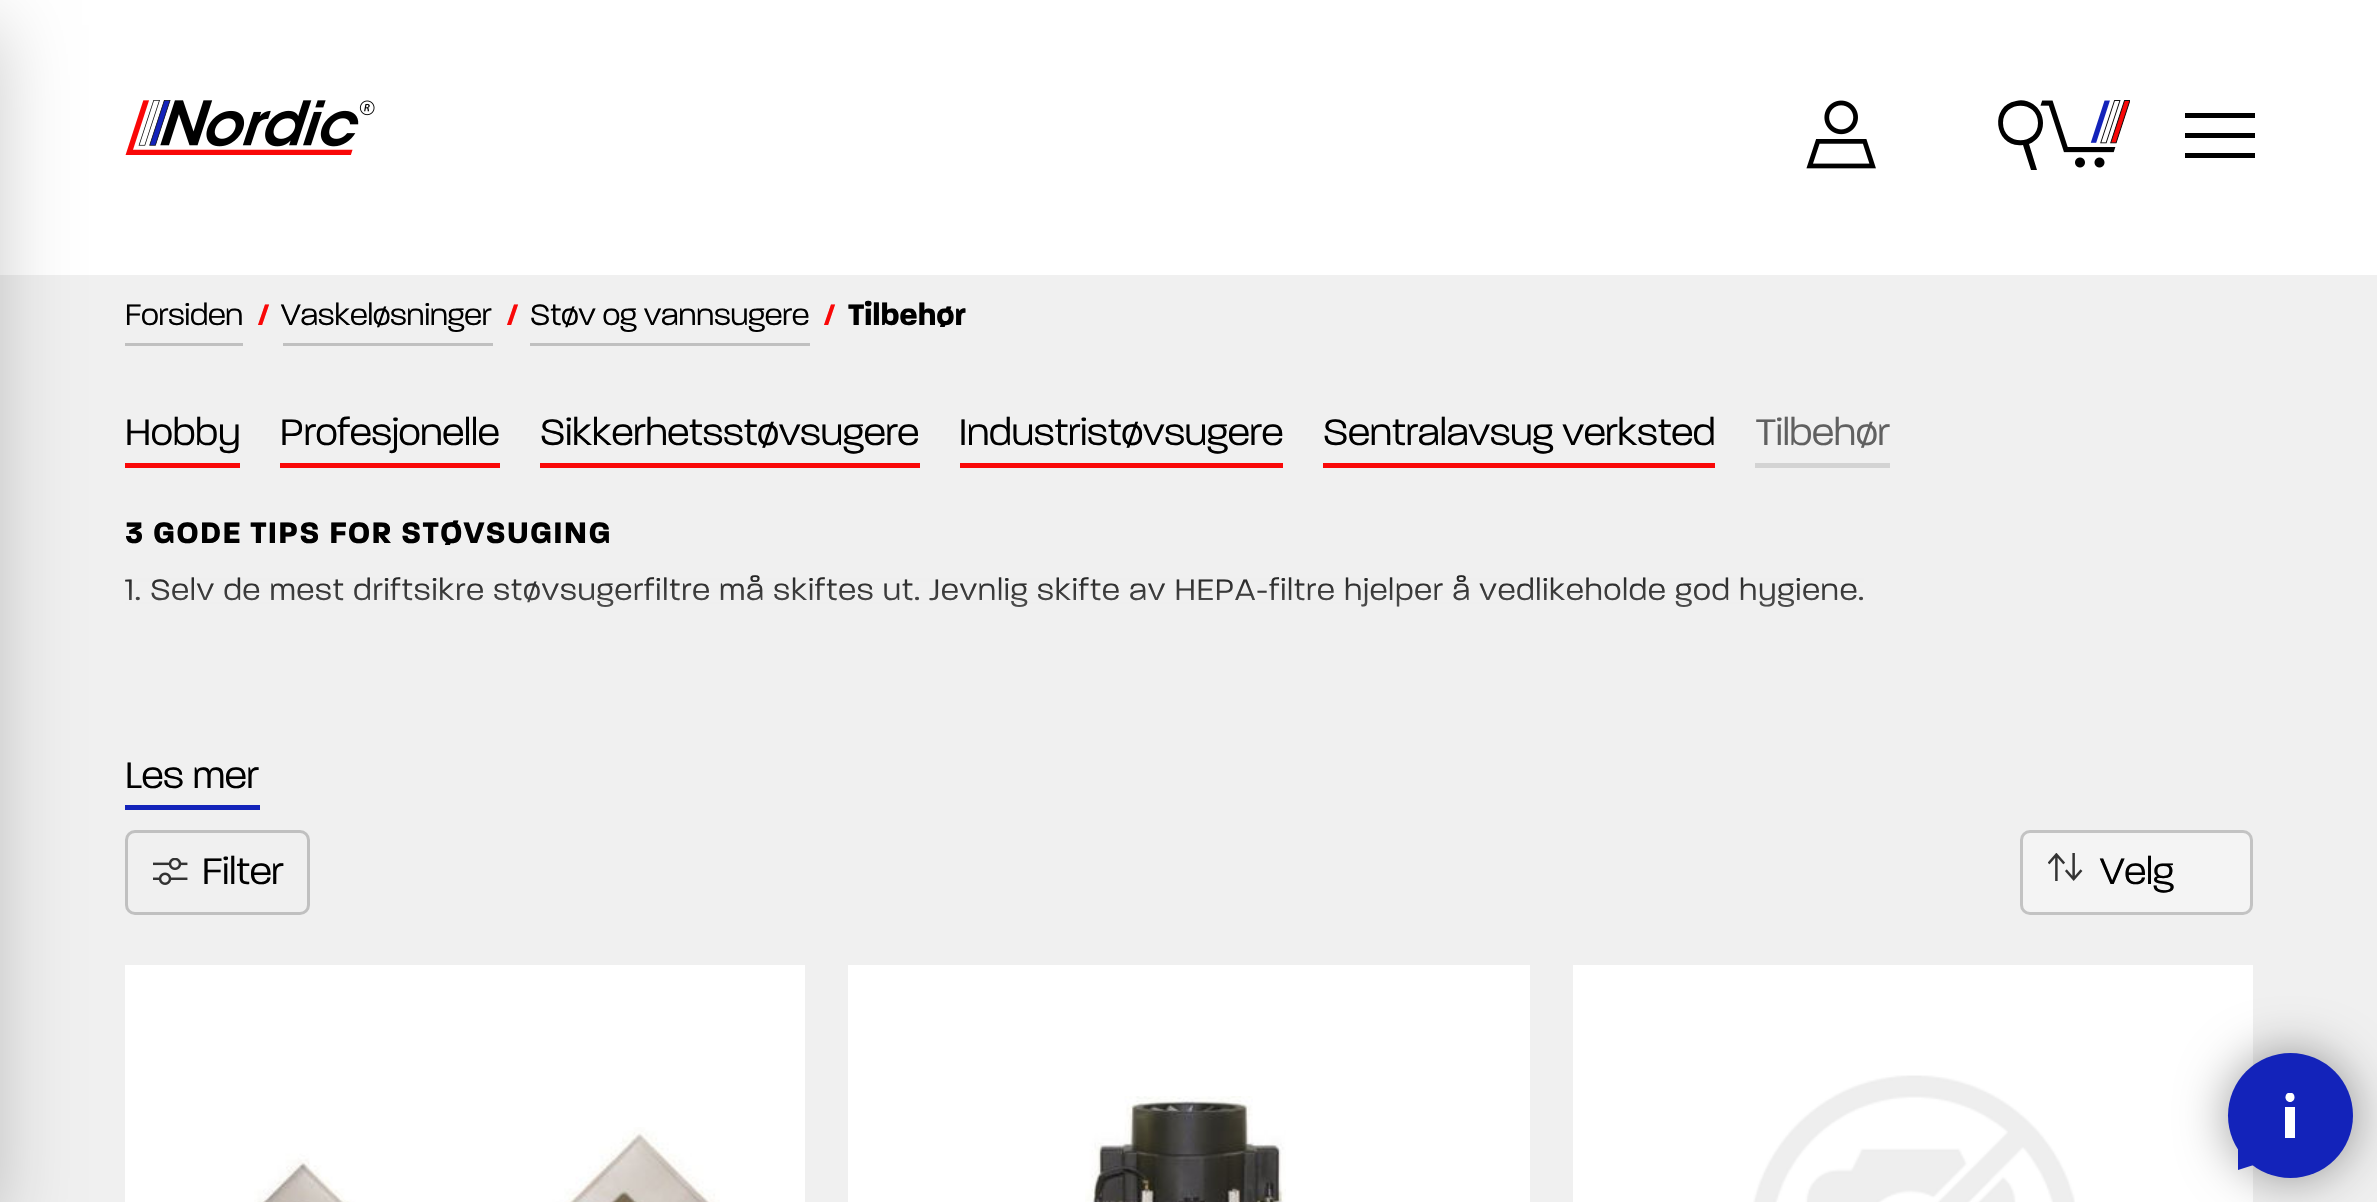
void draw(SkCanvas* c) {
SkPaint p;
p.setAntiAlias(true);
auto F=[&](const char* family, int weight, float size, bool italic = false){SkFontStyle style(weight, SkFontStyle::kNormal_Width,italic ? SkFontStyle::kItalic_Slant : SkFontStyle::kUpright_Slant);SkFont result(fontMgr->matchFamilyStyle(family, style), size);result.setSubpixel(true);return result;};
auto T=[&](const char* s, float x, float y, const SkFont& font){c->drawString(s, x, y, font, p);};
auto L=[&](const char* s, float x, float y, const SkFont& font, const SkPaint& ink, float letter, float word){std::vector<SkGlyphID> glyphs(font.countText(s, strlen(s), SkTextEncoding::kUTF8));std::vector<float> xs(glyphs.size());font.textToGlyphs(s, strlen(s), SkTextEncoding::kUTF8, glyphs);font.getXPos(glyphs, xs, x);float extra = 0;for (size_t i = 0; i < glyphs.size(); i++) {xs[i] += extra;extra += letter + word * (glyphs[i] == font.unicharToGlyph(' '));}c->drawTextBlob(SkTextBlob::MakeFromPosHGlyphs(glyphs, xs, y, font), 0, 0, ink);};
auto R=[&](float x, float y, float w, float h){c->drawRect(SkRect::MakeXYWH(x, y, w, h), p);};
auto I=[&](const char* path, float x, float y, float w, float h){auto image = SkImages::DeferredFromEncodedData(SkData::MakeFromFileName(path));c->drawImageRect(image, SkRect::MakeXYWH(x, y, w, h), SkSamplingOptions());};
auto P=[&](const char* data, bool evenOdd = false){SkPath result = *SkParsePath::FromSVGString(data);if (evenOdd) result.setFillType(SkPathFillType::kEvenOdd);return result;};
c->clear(0xffffffff);
I("1.png",125,100,250,55);
I("2.png",1806,100,70,69);
I("3.png",2040,100,90,68);
p.setColor(0xff000000);
c->drawPath(P("M2043 123c0-8-4-15-10-19c-5-3-11-5-17-3c-28 5-21 48 7 44l8 25h6l-8-26c8-3 14-11 14-21zm-40 0c0-23 35-23 35 0c0 23-35 23-35 0z"),p);
R(2185,113,70,5);
R(2185,133,70,5);
R(2185,153,70,5);
p.setColor(0xfff0f0f0);
R(0,275,2377,927);
auto f1 = F("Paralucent",300,32);
p.setColor(0xff000000);
T("Forsiden",125,325,f1);
p.setColor(0xffc0c0c0);
R(125,343,118,3);
auto f2 = F("Paralucent",900,32);
p.setColor(0xfff90808);
T("/",258,325,f2);
p.setColor(0xff000000);
T("Vaskeløsninger",281,325,f1);
p.setColor(0xffc0c0c0);
R(283,343,210,3);
p.setColor(0xfff90808);
T("/",507,325,f2);
p.setColor(0xff000000);
T("Støv og vannsugere",530,325,f1);
p.setColor(0xffc0c0c0);
R(530,343,280,3);
p.setColor(0xfff90808);
T("/",824,325,f2);
auto f3 = F("Paralucent",700,32);
p.setColor(0xff000000);
T("Tilbehør",848,325,f3);
auto f4 = F("Paralucent",300,40);
T("Hobby",125,445,f4);
p.setColor(0xfff90808);
R(125,463,115,5);
p.setColor(0xff000000);
T("Profesjonelle",280,445,f4);
p.setColor(0xfff90808);
R(280,463,220,5);
p.setColor(0xff000000);
T("Sikkerhetsstøvsugere",540,445,f4);
p.setColor(0xfff90808);
R(540,463,380,5);
p.setColor(0xff000000);
T("Industristøvsugere",959,445,f4);
p.setColor(0xfff90808);
R(960,463,323,5);
p.setColor(0xff000000);
T("Sentralavsug verksted",1323,445,f4);
p.setColor(0xfff90808);
R(1323,463,392,5);
p.setColor(0xff606060);
T("Tilbehør",1756,445,f4);
p.setColor(0xffd3d3d3);
R(1755,463,135,5);
p.setColor(0xff000000);
L("3 GODE TIPS FOR STØVSUGING",125,543,f3,p,1.25,0);
L("1. Selv de mest driftsikre støvsugerfiltre må skiftes ut. Jevnlig skifte av HEPA-filtre hjelper å vedlikeholde god hygiene.",125,600,f1,p,1.25,0);
{
const SkColor colors[] = {0xfff0f0f0,0x00f0f0f0};
const float stops[] = {0,1};
const SkPoint ends[] = {{1189,728}, {1189,548}};
p.setShader(SkGradientShader::MakeLinear(ends, colors, stops, 2, SkTileMode::kClamp));
p.setAlpha(255);
}
R(125,575,1739,32);
p.setShader(nullptr);
p.setColor(0xff000000);
T("Les mer",125,788,f4);
p.setColor(0xff1323ba);
R(125,805,135,5);
p.setColor(0x33000000);
p.setMaskFilter(SkMaskFilter::MakeBlur(kNormal_SkBlurStyle, 37.5));
c->drawRect(SkRect::MakeXYWH(-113,25,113,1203),p);
p.setMaskFilter(nullptr);
p.setStroke(true);
p.setStrokeWidth(3);
p.setColor(0xffc0c0c0);
c->drawRoundRect(SkRect::MakeXYWH(126.5,831.5,182,82),8.5,8.5,p);
I("4.png",153,858,35,27);
p.setStroke(false);
p.setColor(0xff000000);
T("Filter",202,884,f4);
p.setColor(0xfff4f4f4);
c->drawRoundRect(SkRect::MakeXYWH(2021.5,831.5,230,82),8.5,8.5,p);
p.setStroke(true);
p.setColor(0xffc3c3c3);
c->drawRoundRect(SkRect::MakeXYWH(2021.5,831.5,230,82),8.5,8.5,p);
I("5.png",2048,853,35,28);
p.setStroke(false);
p.setColor(0xff000000);
T("Velg",2100,884,f4);
p.setColor(0xffffffff);
R(125,965,680,237);
I("6.png",254,1127,466,75);
R(848,965,682,237);
I("7.png",1085,1096,201,106);
R(1573,965,680,237);
I("8.png",1753,1075,322,127);
p.setColor(0x66000000);
p.setMaskFilter(SkMaskFilter::MakeBlur(kNormal_SkBlurStyle, 25));
c->drawRoundRect(SkRect::MakeXYWH(2228,1053,125,125),62.5,62.5,p);
p.setMaskFilter(nullptr);
p.setColor(0xff1323ba);
c->drawCircle(2290.5,1115.5,62.5,p);
p.setColor(0xffffffff);
R(2285,1107,10,31);
c->save();
c->clipRect(SkRect::MakeXYWH(2285,1093,10,45));
c->drawPath(P("M2290 1092.5c6 0 6 9.5 0 9.5c-6 0-6-9.5 0-9.5z"),p);
c->restore();
p.setColor(0xff1323ba);
c->drawPath(P("M2238 1140l47-15v30l-47 15z"),p);
}
